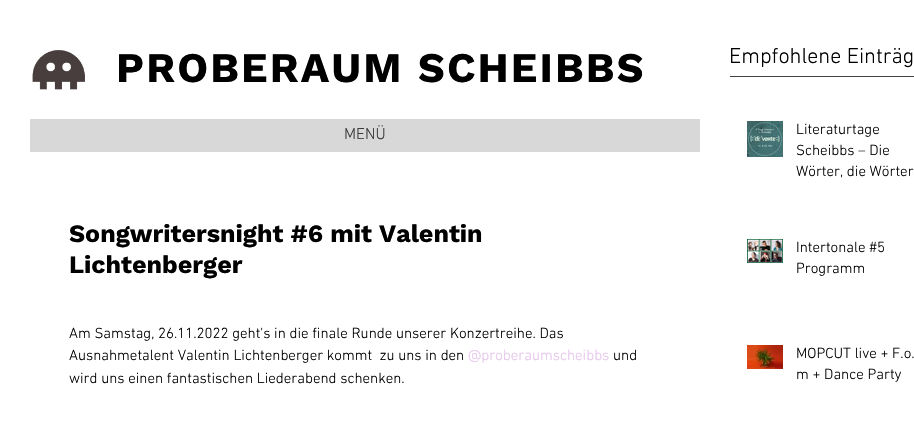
void draw(SkCanvas* c) {
SkPaint p;
p.setAntiAlias(true);
auto F=[&](const char* family, int weight, float size, bool italic = false){SkFontStyle style(weight, SkFontStyle::kNormal_Width,italic ? SkFontStyle::kItalic_Slant : SkFontStyle::kUpright_Slant);SkFont result(fontMgr->matchFamilyStyle(family, style), size);result.setSubpixel(true);return result;};
auto T=[&](const char* s, float x, float y, const SkFont& font){c->drawString(s, x, y, font, p);};
auto L=[&](const char* s, float x, float y, const SkFont& font, const SkPaint& ink, float letter, float word){std::vector<SkGlyphID> glyphs(font.countText(s, strlen(s), SkTextEncoding::kUTF8));std::vector<float> xs(glyphs.size());font.textToGlyphs(s, strlen(s), SkTextEncoding::kUTF8, glyphs);font.getXPos(glyphs, xs, x);float extra = 0;for (size_t i = 0; i < glyphs.size(); i++) {xs[i] += extra;extra += letter + word * (glyphs[i] == font.unicharToGlyph(' '));}c->drawTextBlob(SkTextBlob::MakeFromPosHGlyphs(glyphs, xs, y, font), 0, 0, ink);};
auto R=[&](float x, float y, float w, float h){c->drawRect(SkRect::MakeXYWH(x, y, w, h), p);};
auto I=[&](const char* path, float x, float y, float w, float h){auto image = SkImages::DeferredFromEncodedData(SkData::MakeFromFileName(path));c->drawImageRect(image, SkRect::MakeXYWH(x, y, w, h), SkSamplingOptions());};
c->clear(0xffffffff);
I("1.png",32,50,53,40);
auto f1 = F("Work Sans",700,42);
p.setColor(0xff000000);
L("PROBERAUM SCHEIBBS",116,82,f1,p,2.1,0);
auto f2 = F("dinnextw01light",300,22);
T("Empfohlene Einträg",729,63,f2);
p.setColor(0xff424242);
R(730,76,184,1);
p.setColor(0xffd8d8d8);
R(30,119,670,33);
auto f3 = F("dinnextw01light",300,16);
p.setColor(0xff3b3b3b);
T("MENÜ",344,139,f3);
I("2.png",747,121,36,36);
auto f4 = F("dinnextw01light",300,15);
p.setColor(0xff000000);
T("Literaturtage",796,134,f4);
T("Scheibbs – Die",796,155,f4);
T("Wörter, die Wörter",796,176,f4);
I("3.png",747,239,36,24);
T("Intertonale #5",796,252,f4);
T("Programm",796,273,f4);
I("4.png",747,345,36,24);
T("MOPCUT live + F.o.",796,358,f4);
T("m + Dance Party",796,379,f4);
auto f5 = F("Work Sans",700,25);
T("Songwritersnight #6 mit Valentin",69,242,f5);
T("Lichtenberger",69,273,f5);
T("Am Samstag, 26.11.2022 geht's in die finale Runde unserer Konzertreihe. Das",69,338,f4);
T("Ausnahmetalent Valentin Lichtenberger kommt  zu uns in den",69,360,f4);
p.setColor(0xffe6c7eb);
T("@proberaumscheibbs",468,360,f4);
p.setColor(0xff000000);
T("und",613,360,f4);
T("wird uns einen fantastischen Liederabend schenken.",69,383,f4);
}
